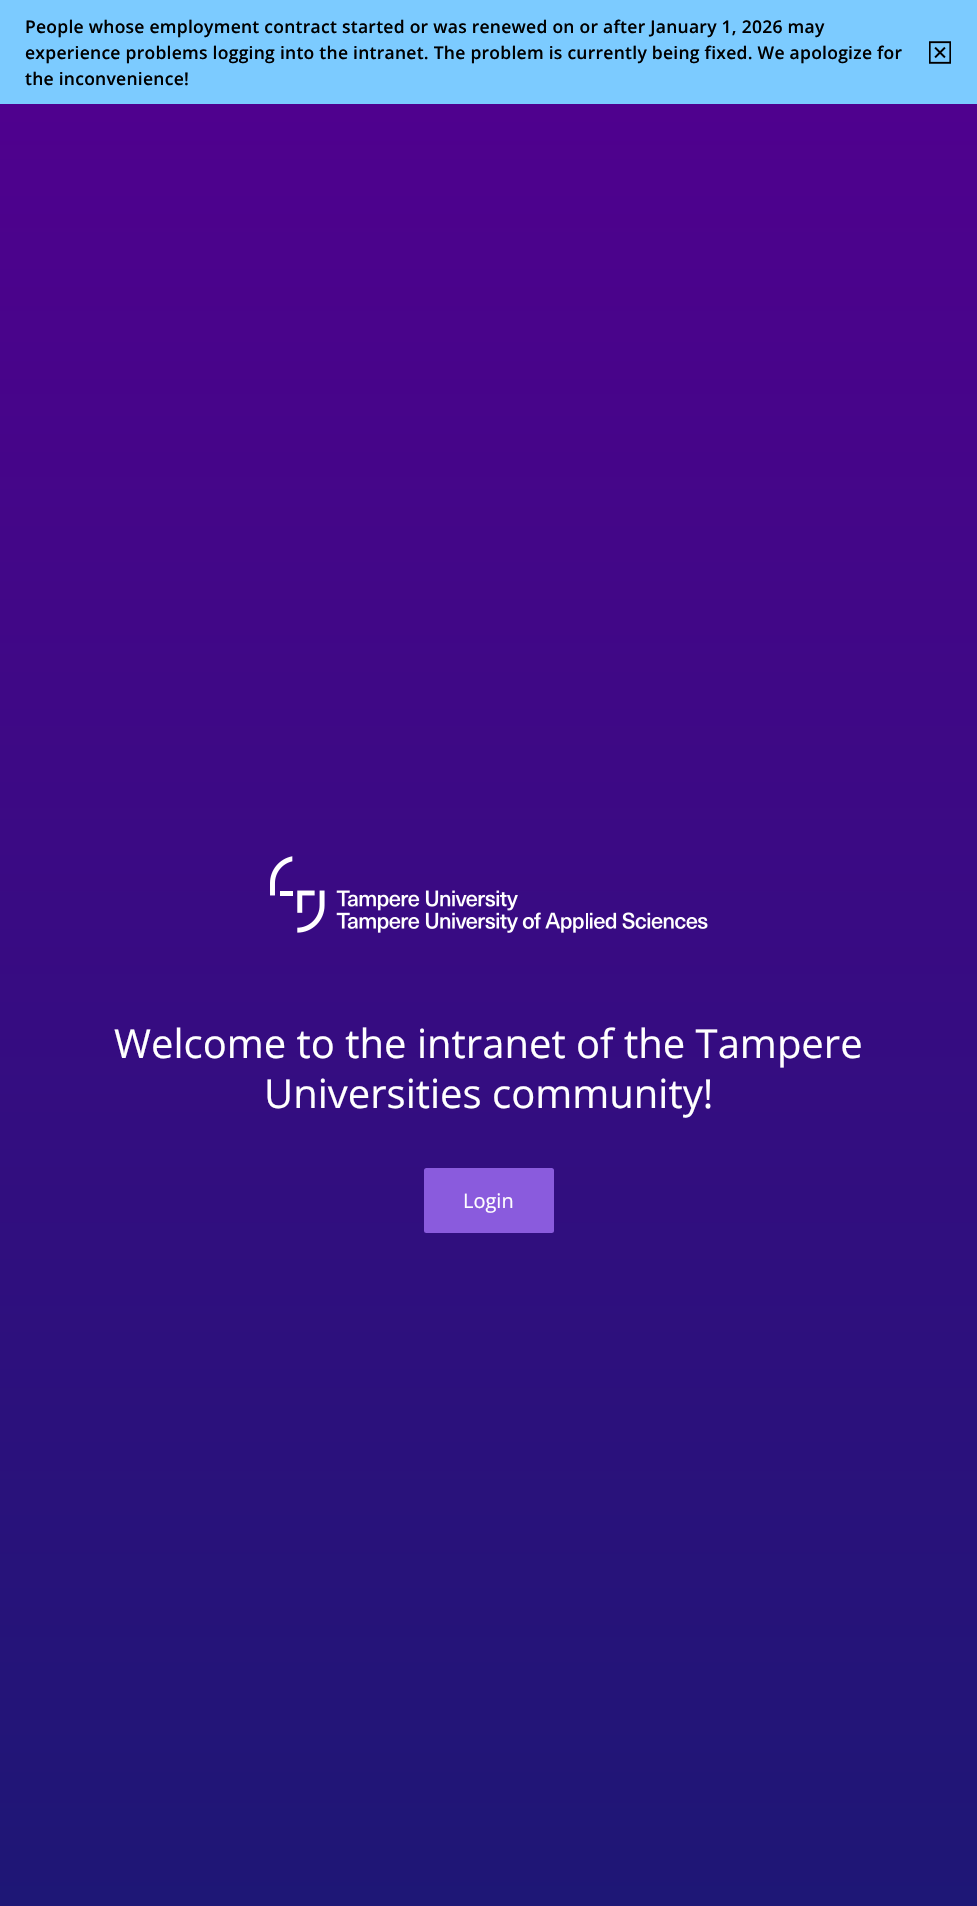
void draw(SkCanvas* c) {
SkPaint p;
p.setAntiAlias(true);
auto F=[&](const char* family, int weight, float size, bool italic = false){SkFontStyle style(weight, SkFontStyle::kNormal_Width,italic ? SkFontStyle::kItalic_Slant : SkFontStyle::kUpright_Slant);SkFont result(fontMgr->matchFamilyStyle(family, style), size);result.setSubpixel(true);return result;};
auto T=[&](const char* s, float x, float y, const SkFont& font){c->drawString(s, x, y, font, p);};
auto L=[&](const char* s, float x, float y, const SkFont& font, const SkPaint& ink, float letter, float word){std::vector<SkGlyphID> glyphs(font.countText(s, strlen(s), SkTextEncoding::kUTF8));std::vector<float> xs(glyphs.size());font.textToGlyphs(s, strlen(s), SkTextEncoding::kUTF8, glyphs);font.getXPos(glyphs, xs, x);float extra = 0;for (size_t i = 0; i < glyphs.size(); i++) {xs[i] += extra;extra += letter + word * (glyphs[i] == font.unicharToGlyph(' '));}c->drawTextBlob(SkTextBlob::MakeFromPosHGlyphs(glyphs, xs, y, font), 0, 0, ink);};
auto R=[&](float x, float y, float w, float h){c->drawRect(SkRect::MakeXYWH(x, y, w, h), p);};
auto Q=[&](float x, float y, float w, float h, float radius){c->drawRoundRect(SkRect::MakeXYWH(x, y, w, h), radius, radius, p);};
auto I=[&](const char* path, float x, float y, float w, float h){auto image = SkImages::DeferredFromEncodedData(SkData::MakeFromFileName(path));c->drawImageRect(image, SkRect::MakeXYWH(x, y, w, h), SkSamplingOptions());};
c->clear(0xff7ccbff);
auto f1 = F("Open Sans",600,17.5);
p.setColor(0xff000000);
L("People whose employment contract started or was renewed on or after January 1, 2026 may",25,33,f1,p,.26,0);
L("experience problems logging into the intranet. The problem is currently being fixed. We apologize for",25,59,f1,p,.26,0);
L("the inconvenience!",25,85,f1,p,.26,0);
I("1.png",929,41,22,23);
{
const SkColor colors[] = {0xff4f018e,0xff1b1874};
const float stops[] = {0,1};
const SkPoint ends[] = {{489,104}, {489,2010}};
p.setShader(SkGradientShader::MakeLinear(ends, colors, stops, 2, SkTileMode::kClamp));
p.setAlpha(255);
}
R(0,104,977,1802);
I("2.png",270,856,438,77);
auto f2 = F("Open Sans",400,40);
p.setShader(nullptr);
p.setColor(0xffffffff);
T("Welcome to the intranet of the Tampere",114,1058,f2);
T("Universities community!",264,1108,f2);
p.setColor(0xff8a5bdd);
Q(424,1168,130,65,2.5);
auto f3 = F("Open Sans",400,20);
p.setColor(0xffffffff);
T("Login",463,1208,f3);
}
